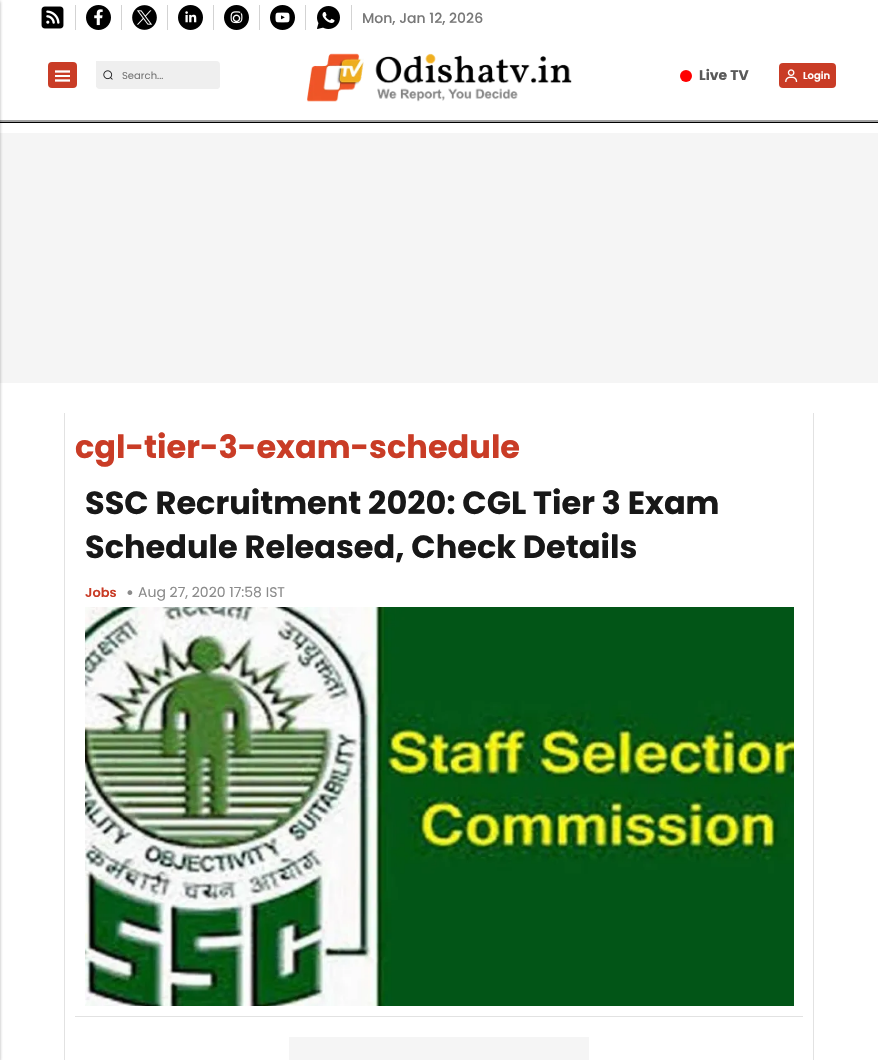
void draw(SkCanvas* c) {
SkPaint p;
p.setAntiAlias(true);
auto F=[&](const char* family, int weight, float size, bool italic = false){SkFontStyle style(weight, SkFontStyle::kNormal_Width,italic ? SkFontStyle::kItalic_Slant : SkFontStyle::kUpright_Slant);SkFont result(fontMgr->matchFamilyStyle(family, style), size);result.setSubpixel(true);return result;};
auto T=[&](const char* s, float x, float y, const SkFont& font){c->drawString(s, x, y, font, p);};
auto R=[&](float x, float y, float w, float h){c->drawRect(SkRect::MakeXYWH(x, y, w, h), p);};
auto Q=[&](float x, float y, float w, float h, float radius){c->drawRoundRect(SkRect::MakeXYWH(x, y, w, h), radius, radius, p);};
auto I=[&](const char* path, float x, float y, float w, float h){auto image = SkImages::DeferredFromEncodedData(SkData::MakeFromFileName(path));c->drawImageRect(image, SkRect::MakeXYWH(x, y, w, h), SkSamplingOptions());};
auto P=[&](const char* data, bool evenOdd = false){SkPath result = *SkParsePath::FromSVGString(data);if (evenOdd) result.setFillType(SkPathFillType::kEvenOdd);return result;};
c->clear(0xffffffff);
p.setColor(0xff000000);
R(0,122,878,1);
p.setColor(0xffa0a0a0);
R(0,120,878,2);
p.setColor(0xfff5f5f5);
R(0,133,878,250);
p.setColor(0x38000000);
p.setMaskFilter(SkMaskFilter::MakeBlur(kNormal_SkBlurStyle, 1.5));
c->drawRect(SkRect::MakeXYWH(-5,2,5,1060),p);
p.setMaskFilter(nullptr);
p.setColor(0x1f000000);
p.setMaskFilter(SkMaskFilter::MakeBlur(kNormal_SkBlurStyle, 1.5));
c->drawRect(SkRect::MakeXYWH(-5,0,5,1060),p);
p.setMaskFilter(nullptr);
p.setColor(0xffd3d3d3);
R(75,5,1,25);
I("1.png",41,6,23,23);
R(121,5,1,25);
I("2.png",86,5,25,25);
R(167,5,1,25);
I("3.png",132,5,25,25);
R(213,5,1,25);
I("4.png",178,5,25,25);
R(259,5,1,25);
I("5.png",224,5,25,25);
R(305,5,1,25);
I("6.png",270,5,25,25);
R(351,5,1,25);
I("7.png",317,6,23,23);
auto f1 = F("Poppins",500,14);
p.setColor(0xff777777);
T("Mon, Jan 12, 2026",362,23,f1);
p.setColor(0xffc93c26);
Q(48,62,29,26,4);
p.setStroke(true);
p.setStrokeWidth(2.3);
p.setColor(0xffffffff);
c->drawPath(P("M55 71.5h15"),p);
p.setStroke(false);
R(55,75,15,2);
p.setStroke(true);
c->drawPath(P("M55 80.5h15"),p);
p.setStroke(false);
p.setColor(0xffefefef);
Q(96,61,124,28,4);
R(96,61,3,26);
I("8.png",103,70,10,10);
Q(120,64,100,25,4);
auto f2 = F("Poppins",400,10);
p.setColor(0xff777777);
T("Search...",122,79,f2);
I("9.png",307,53,265,49);
p.setColor(0xffff0000);
c->drawCircle(686,76,6,p);
auto f3 = F("Poppins",700,14);
p.setColor(0xff595959);
T("Live TV",699,80,f3);
p.setColor(0xffc93c26);
Q(779,63,57,25,4);
I("10.png",785,69,13,13);
auto f4 = F("Poppins",600,10);
p.setColor(0xffffffff);
T("Login",803,79,f4);
p.setColor(0xffe2e2e2);
R(813,413,1,647);
R(64,413,1,647);
auto f5 = F("Poppins",700,32);
p.setColor(0xffc93c26);
T("cgl-tier-3-exam-schedule",75,458,f5);
p.setColor(0xffe2e2e2);
R(75,1016,728,1);
p.setColor(0xff181818);
T("SSC Recruitment 2020: CGL Tier 3 Exam",85,514,f5);
T("Schedule Released, Check Details",85,558,f5);
auto f6 = F("Poppins",600,13);
p.setColor(0xffc93c26);
T("Jobs",85,597,f6);
auto f7 = F("Poppins",400,19);
p.setColor(0xff8b8b8b);
T("•",126,599,f7);
auto f8 = F("Poppins",400,14);
T("Aug 27, 2020 17:58 IST",138,597,f8);
I("11.png",85,607,709,399);
p.setColor(0xfff5f5f5);
R(289,1037,300,23);
}
